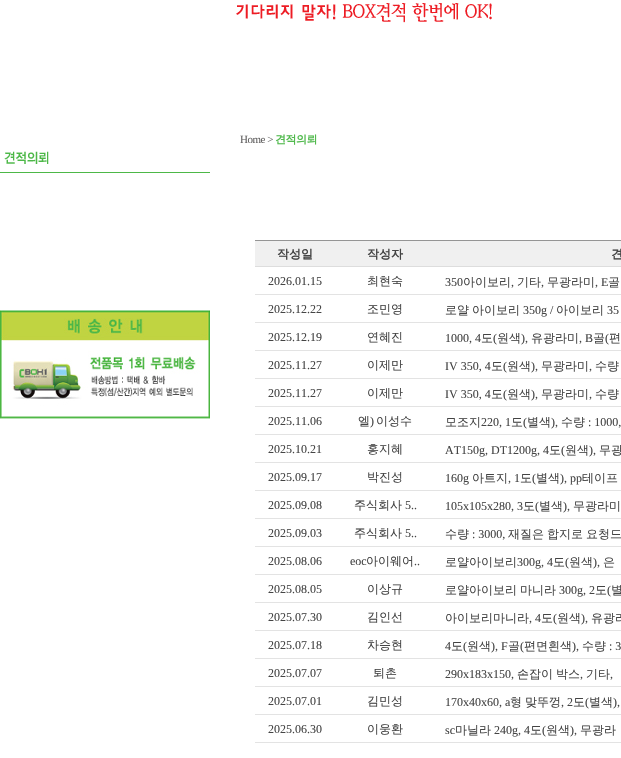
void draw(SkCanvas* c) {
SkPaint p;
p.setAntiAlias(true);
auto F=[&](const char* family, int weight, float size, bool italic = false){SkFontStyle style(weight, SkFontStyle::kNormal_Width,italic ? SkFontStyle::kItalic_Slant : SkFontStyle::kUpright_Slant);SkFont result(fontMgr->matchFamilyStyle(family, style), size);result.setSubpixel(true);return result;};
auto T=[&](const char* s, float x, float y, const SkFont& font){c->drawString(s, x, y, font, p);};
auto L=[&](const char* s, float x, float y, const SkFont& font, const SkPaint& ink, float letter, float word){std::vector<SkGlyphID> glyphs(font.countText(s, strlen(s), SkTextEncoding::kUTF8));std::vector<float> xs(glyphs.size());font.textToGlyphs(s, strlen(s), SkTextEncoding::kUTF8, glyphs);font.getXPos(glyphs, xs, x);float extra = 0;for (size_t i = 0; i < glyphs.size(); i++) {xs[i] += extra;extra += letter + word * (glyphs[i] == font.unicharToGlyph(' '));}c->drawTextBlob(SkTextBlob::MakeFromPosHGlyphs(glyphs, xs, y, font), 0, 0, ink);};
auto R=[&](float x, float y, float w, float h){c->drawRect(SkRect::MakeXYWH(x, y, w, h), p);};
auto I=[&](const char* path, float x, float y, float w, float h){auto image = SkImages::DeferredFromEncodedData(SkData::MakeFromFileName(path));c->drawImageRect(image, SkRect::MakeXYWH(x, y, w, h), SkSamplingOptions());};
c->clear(0xffffffff);
I("1.png",236,3,256,20);
I("2.png",0,151,210,22);
I("3.png",0,310,210,109);
auto f1 = F("Liberation Serif",400,11);
p.setColor(0xff636262);
L("Home >",240,143,f1,p,-.5,0);
auto f2 = F("WenQuanYi Zen Hei",700,11);
p.setColor(0xff52ba4e);
L("견적의뢰",275,143,f2,p,-.5,0);
p.setColor(0xff959595);
R(255,240,366,1);
p.setColor(0xfff0f0f0);
R(255,241,366,25);
auto f3 = F("WenQuanYi Zen Hei",700,12);
p.setColor(0xff444444);
T("작성일",277,258,f3);
T("작성자",367,258,f3);
T("견",611,258,f3);
p.setColor(0xffdddddd);
R(255,266,366,1);
auto f4 = F("Liberation Serif",400,12);
p.setColor(0xff444444);
T("2026.01.15",268,285,f4);
auto f5 = F("WenQuanYi Zen Hei",500,12);
T("최현숙",367,285,f5);
T("350",445,286,f4);
T("아이보리",463,286,f5);
T(",",511,286,f4);
T("기타",517,286,f5);
T(",",541,286,f4);
T("무광라미",547,286,f5);
T(", E",595,286,f4);
T("골",608,286,f5);
p.setColor(0xffe3e3e3);
R(255,294,366,1);
p.setColor(0xff444444);
T("2025.12.22",268,313,f4);
T("조민영",367,313,f5);
T("로얄",445,314,f5);
T("아이보리",472,314,f5);
T("350g /",523,314,f4);
T("아이보리",556,314,f5);
T("35",607,314,f4);
p.setColor(0xffe3e3e3);
R(255,322,366,1);
p.setColor(0xff444444);
T("2025.12.19",268,341,f4);
T("연혜진",367,341,f5);
T("1000, 4",445,342,f4);
T("도",481,342,f5);
T("(",493,342,f4);
T("원색",497,342,f5);
T("),",521,342,f4);
T("유광라미",531,342,f5);
T(", B",579,342,f4);
T("골",593,342,f5);
T("(",605,342,f4);
T("편",609,342,f5);
p.setColor(0xffe3e3e3);
R(255,350,366,1);
p.setColor(0xff444444);
T("2025.11.27",268,369,f4);
T("이제만",367,369,f5);
T("IV 350, 4",445,370,f4);
T("도",491,370,f5);
T("(",503,370,f4);
T("원색",507,370,f5);
T("),",531,370,f4);
T("무광라미",541,370,f5);
T(",",589,370,f4);
T("수량",595,370,f5);
p.setColor(0xffe3e3e3);
R(255,378,366,1);
p.setColor(0xff444444);
T("2025.11.27",268,397,f4);
T("이제만",367,397,f5);
T("IV 350, 4",445,398,f4);
T("도",491,398,f5);
T("(",503,398,f4);
T("원색",507,398,f5);
T("),",531,398,f4);
T("무광라미",541,398,f5);
T(",",589,398,f4);
T("수량",595,398,f5);
p.setColor(0xffe3e3e3);
R(255,406,366,1);
p.setColor(0xff444444);
T("2025.11.06",268,425,f4);
T("엘",358,425,f5);
T(")",370,425,f4);
T("이성수",376,425,f5);
T("모조지",445,426,f5);
T("220, 1",481,426,f4);
T("도",511,426,f5);
T("(",523,426,f4);
T("별색",527,426,f5);
T("),",551,426,f4);
T("수량",561,426,f5);
T(": 1000,",588,426,f4);
p.setColor(0xffe3e3e3);
R(255,434,366,1);
p.setColor(0xff444444);
T("2025.10.21",268,453,f4);
T("홍지혜",367,453,f5);
T("AT150g, DT1200g, 4",445,454,f4);
T("도",549,454,f5);
T("(",561,454,f4);
T("원색",565,454,f5);
T("),",589,454,f4);
T("무광",599,454,f5);
p.setColor(0xffe3e3e3);
R(255,462,366,1);
p.setColor(0xff444444);
T("2025.09.17",268,481,f4);
T("박진성",367,481,f5);
T("160g",445,482,f4);
T("아트지",472,482,f5);
T(", 1",508,482,f4);
T("도",520,482,f5);
T("(",532,482,f4);
T("별색",536,482,f5);
T("), pp",560,482,f4);
T("테이프",582,482,f5);
p.setColor(0xffe3e3e3);
R(255,490,366,1);
p.setColor(0xff444444);
T("2025.09.08",268,509,f4);
T("주식회사",354,509,f5);
T("5..",405,509,f4);
T("105x105x280, 3",445,510,f4);
T("도",523,510,f5);
T("(",535,510,f4);
T("별색",539,510,f5);
T("),",563,510,f4);
T("무광라미",573,510,f5);
p.setColor(0xffe3e3e3);
R(255,518,366,1);
p.setColor(0xff444444);
T("2025.09.03",268,537,f4);
T("주식회사",354,537,f5);
T("5..",405,537,f4);
T("수량",445,538,f5);
T(": 3000,",472,538,f4);
T("재질은",508,538,f5);
T("합지로",547,538,f5);
T("요청드",586,538,f5);
p.setColor(0xffe3e3e3);
R(255,546,366,1);
p.setColor(0xff444444);
T("2025.08.06",268,565,f4);
T("eoc",350,565,f4);
T("아이웨어",366,565,f5);
T("..",414,565,f4);
T("로얄아이보리",445,566,f5);
T("300g, 4",517,566,f4);
T("도",553,566,f5);
T("(",565,566,f4);
T("원색",569,566,f5);
T("),",593,566,f4);
T("은",603,566,f5);
p.setColor(0xffe3e3e3);
R(255,574,366,1);
p.setColor(0xff444444);
T("2025.08.05",268,593,f4);
T("이상규",367,593,f5);
T("로얄아이보리",445,594,f5);
T("마니라",520,594,f5);
T("300g, 2",559,594,f4);
T("도",595,594,f5);
T("(",607,594,f4);
T("별",611,594,f5);
p.setColor(0xffe3e3e3);
R(255,602,366,1);
p.setColor(0xff444444);
T("2025.07.30",268,621,f4);
T("김인선",367,621,f5);
T("아이보리마니라",445,622,f5);
T(", 4",529,622,f4);
T("도",541,622,f5);
T("(",553,622,f4);
T("원색",557,622,f5);
T("),",581,622,f4);
T("유광라",591,622,f5);
p.setColor(0xffe3e3e3);
R(255,630,366,1);
p.setColor(0xff444444);
T("2025.07.18",268,649,f4);
T("차승현",367,649,f5);
T("4",445,650,f4);
T("도",451,650,f5);
T("(",463,650,f4);
T("원색",467,650,f5);
T("), F",491,650,f4);
T("골",508,650,f5);
T("(",520,650,f4);
T("편면흰색",524,650,f5);
T("),",572,650,f4);
T("수량",582,650,f5);
T(": 3",609,650,f4);
p.setColor(0xffe3e3e3);
R(255,658,366,1);
p.setColor(0xff444444);
T("2025.07.07",268,677,f4);
T("퇴촌",373,677,f5);
T("290x183x150,",445,678,f4);
T("손잡이",517,678,f5);
T("박스",556,678,f5);
T(",",580,678,f4);
T("기타",586,678,f5);
T(",",610,678,f4);
p.setColor(0xffe3e3e3);
R(255,686,366,1);
p.setColor(0xff444444);
T("2025.07.01",268,705,f4);
T("김민성",367,705,f5);
T("170x40x60, a",445,706,f4);
T("형",510,706,f5);
T("맞뚜껑",525,706,f5);
T(", 2",561,706,f4);
T("도",573,706,f5);
T("(",585,706,f4);
T("별색",589,706,f5);
T("),",613,706,f4);
p.setColor(0xffe3e3e3);
R(255,714,366,1);
p.setColor(0xff444444);
T("2025.06.30",268,733,f4);
T("이웅환",367,733,f5);
T("sc",445,734,f4);
T("마닐라",455,734,f5);
T("240g, 4",494,734,f4);
T("도",530,734,f5);
T("(",542,734,f4);
T("원색",546,734,f5);
T("),",570,734,f4);
T("무광라",580,734,f5);
p.setColor(0xffe3e3e3);
R(255,742,366,1);
}
